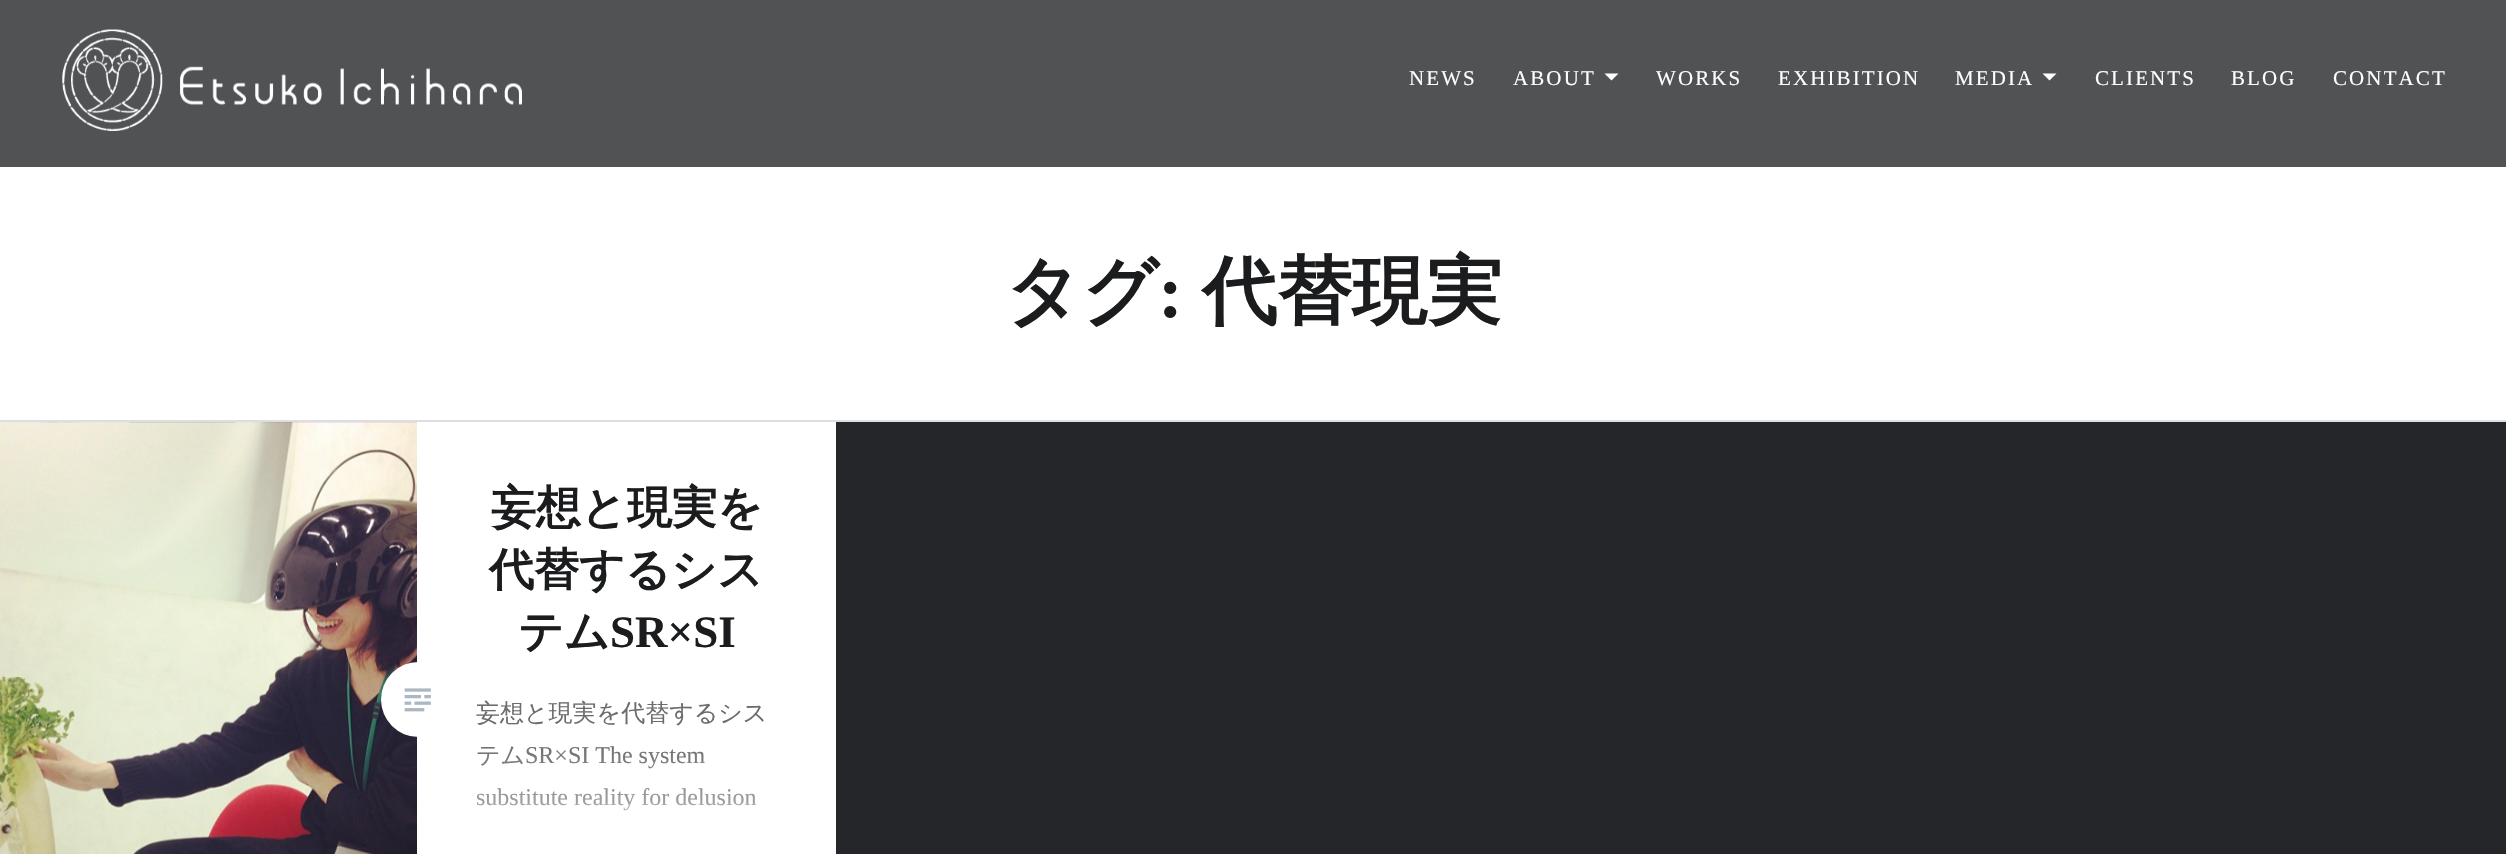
void draw(SkCanvas* c) {
SkPaint p;
p.setAntiAlias(true);
auto F=[&](const char* family, int weight, float size, bool italic = false){SkFontStyle style(weight, SkFontStyle::kNormal_Width,italic ? SkFontStyle::kItalic_Slant : SkFontStyle::kUpright_Slant);SkFont result(fontMgr->matchFamilyStyle(family, style), size);result.setSubpixel(true);return result;};
auto T=[&](const char* s, float x, float y, const SkFont& font){c->drawString(s, x, y, font, p);};
auto L=[&](const char* s, float x, float y, const SkFont& font, const SkPaint& ink, float letter, float word){std::vector<SkGlyphID> glyphs(font.countText(s, strlen(s), SkTextEncoding::kUTF8));std::vector<float> xs(glyphs.size());font.textToGlyphs(s, strlen(s), SkTextEncoding::kUTF8, glyphs);font.getXPos(glyphs, xs, x);float extra = 0;for (size_t i = 0; i < glyphs.size(); i++) {xs[i] += extra;extra += letter + word * (glyphs[i] == font.unicharToGlyph(' '));}c->drawTextBlob(SkTextBlob::MakeFromPosHGlyphs(glyphs, xs, y, font), 0, 0, ink);};
auto R=[&](float x, float y, float w, float h){c->drawRect(SkRect::MakeXYWH(x, y, w, h), p);};
auto I=[&](const char* path, float x, float y, float w, float h){auto image = SkImages::DeferredFromEncodedData(SkData::MakeFromFileName(path));c->drawImageRect(image, SkRect::MakeXYWH(x, y, w, h), SkSamplingOptions());};
auto P=[&](const char* data, bool evenOdd = false){SkPath result = *SkParsePath::FromSVGString(data);if (evenOdd) result.setFillType(SkPathFillType::kEvenOdd);return result;};
c->clear(0xffffffff);
p.setColor(0xff505254);
R(0,0,2506,167);
I("1.png",62,29,460,102);
auto f1 = F("Liberation Serif",400,21);
p.setColor(0xffffffff);
L("NEWS",1409,85,f1,p,2.1,0);
L("ABOUT",1513,85,f1,p,2.1,0);
c->drawPath(P("M1604.5 73.5h14l-7 7z"),p);
L("WORKS",1656,85,f1,p,2.1,0);
L("EXHIBITION",1778,85,f1,p,2.1,0);
L("MEDIA",1955,85,f1,p,2.1,0);
c->drawPath(P("M2042.5 73.5h14l-7 7z"),p);
L("CLIENTS",2095,85,f1,p,2.1,0);
L("BLOG",2231,85,f1,p,2.1,0);
L("CONTACT",2333,85,f1,p,2.1,0);
p.setColor(0xff242629);
R(836,422,1670,432);
p.setColor(0xffd9dfe5);
R(0,420,2506,2);
auto f2 = F("WenQuanYi Zen Hei",700,75);
p.setColor(0xff1a1c1e);
T("タグ",1005,317,f2);
auto f3 = F("Liberation Serif",700,75);
T(":",1158,317,f3);
T("代替現実",1202,317,f2);
I("2.png",0,422,417,432);
p.setColor(0xffffffff);
c->drawCircle(418.5,699.5,37.5,p);
auto f4 = F("WenQuanYi Zen Hei",700,45);
p.setColor(0xff1a1c1e);
T("妄想と現実を",491,523,f4);
T("代替するシス",489,585,f4);
T("テム",518,647,f4);
auto f5 = F("Liberation Serif",700,45);
T("SR×SI",610,647,f5);
auto f6 = F("WenQuanYi Zen Hei",500,24);
p.setColor(0xff6a6c6e);
T("妄想と現実を代替するシス",476,721,f6);
T("テム",476,763,f6);
auto f7 = F("Liberation Serif",400,24);
T("SR×SI The system",525,763,f7);
T("substitute reality for delusion",476,805,f7);
{
const SkColor colors[] = {0x00ffffff,0xffffffff};
const float stops[] = {0,1};
const SkPoint ends[] = {{627,742}, {627,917}};
p.setShader(SkGradientShader::MakeLinear(ends, colors, stops, 2, SkTileMode::kClamp));
p.setAlpha(255);
}
R(477,746,280,65);
{
const SkColor colors[] = {0x00ffffff,0xffffffff};
const float stops[] = {0,1};
const SkPoint ends[] = {{627,802}, {627,835}};
p.setShader(SkGradientShader::MakeLinear(ends, colors, stops, 2, SkTileMode::kClamp));
p.setAlpha(255);
}
R(477,803,279,8);
I("3.png",404,688,27,24);
}
